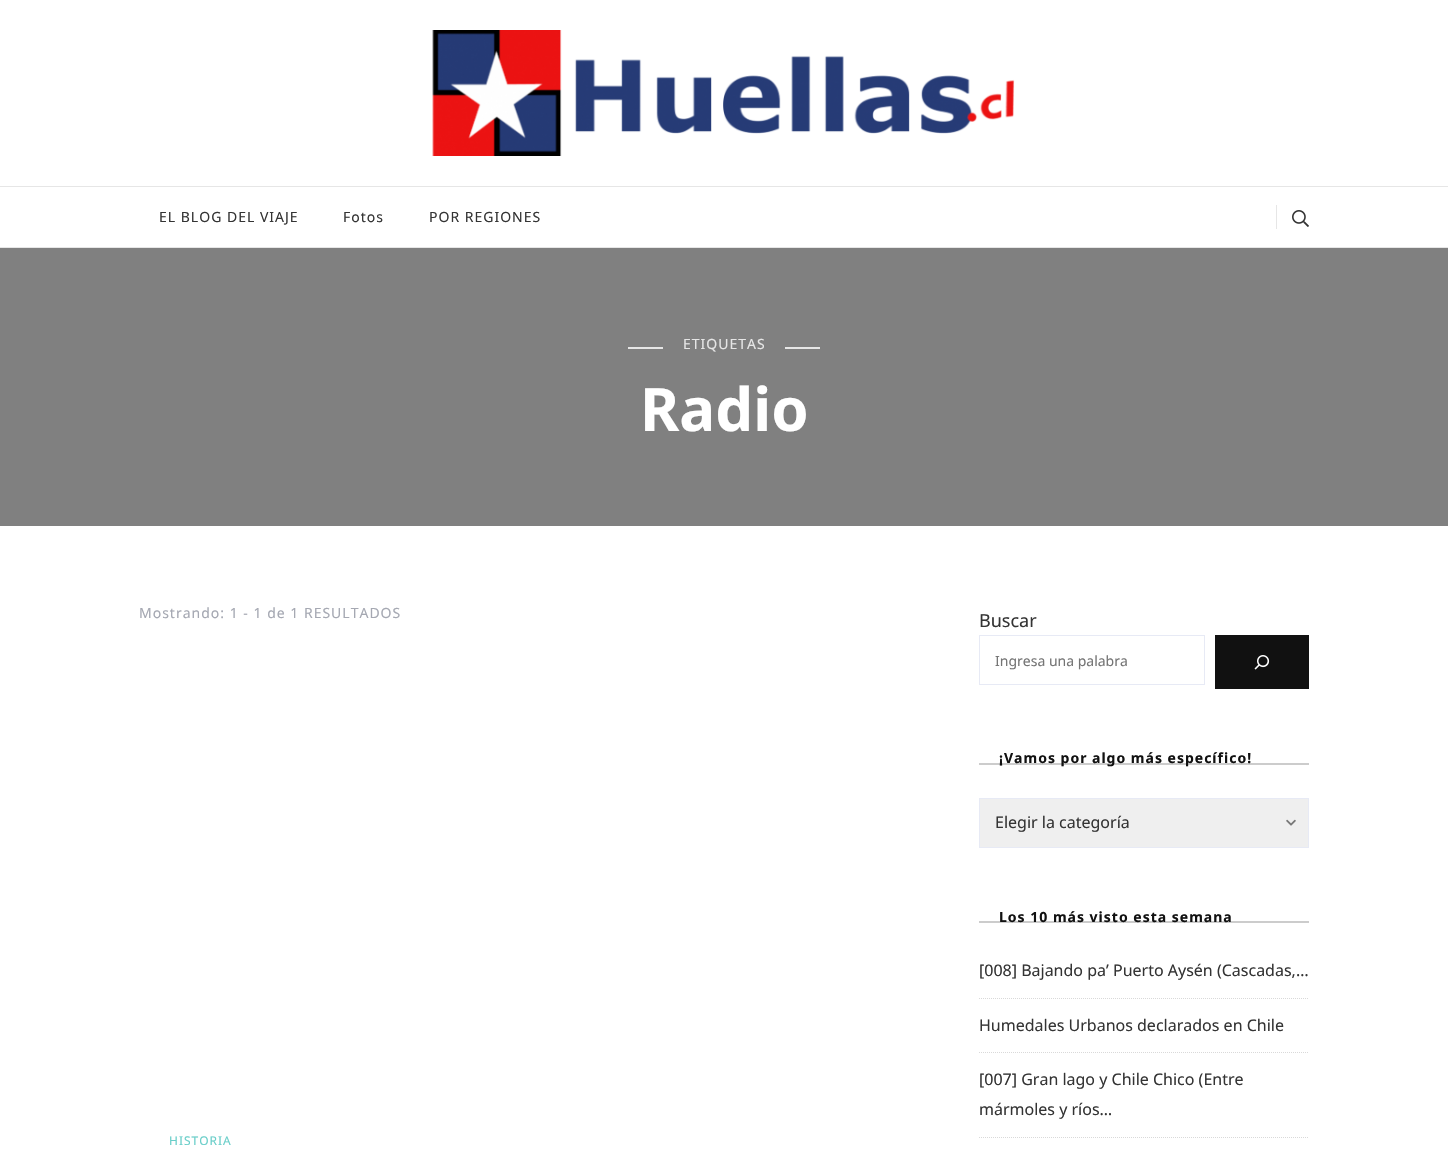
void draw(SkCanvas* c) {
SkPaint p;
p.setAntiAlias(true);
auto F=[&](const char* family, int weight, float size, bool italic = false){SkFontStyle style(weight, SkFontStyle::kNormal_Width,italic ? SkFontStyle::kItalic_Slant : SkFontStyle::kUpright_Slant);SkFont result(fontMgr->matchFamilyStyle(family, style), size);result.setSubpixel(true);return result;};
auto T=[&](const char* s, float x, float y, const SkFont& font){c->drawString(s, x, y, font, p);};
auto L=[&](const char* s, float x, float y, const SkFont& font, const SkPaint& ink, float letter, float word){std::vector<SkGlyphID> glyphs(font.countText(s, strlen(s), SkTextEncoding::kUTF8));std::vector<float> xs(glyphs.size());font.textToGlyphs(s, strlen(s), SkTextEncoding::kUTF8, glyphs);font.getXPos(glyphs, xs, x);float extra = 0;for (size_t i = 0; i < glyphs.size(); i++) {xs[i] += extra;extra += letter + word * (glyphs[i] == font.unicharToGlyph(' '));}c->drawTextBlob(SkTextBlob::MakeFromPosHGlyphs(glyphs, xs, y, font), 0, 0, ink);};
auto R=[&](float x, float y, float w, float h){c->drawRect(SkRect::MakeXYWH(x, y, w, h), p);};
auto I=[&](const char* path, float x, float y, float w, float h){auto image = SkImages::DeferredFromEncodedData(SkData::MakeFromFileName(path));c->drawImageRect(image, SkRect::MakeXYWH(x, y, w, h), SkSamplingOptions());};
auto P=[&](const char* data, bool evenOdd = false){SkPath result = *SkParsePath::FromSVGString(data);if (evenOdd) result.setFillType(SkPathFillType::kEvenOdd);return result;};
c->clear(0xffffffff);
p.setColor(0xffe6e6e6);
R(0,247,1448,1);
I("1.png",432,30,583,126);
R(0,186,1448,1);
auto f1 = F("Noto Sans",400,14);
p.setColor(0xff343434);
L("EL BLOG DEL VIAJE",159,222,f1,p,1,0);
L("Fotos",343,222,f1,p,1,0);
L("POR REGIONES",429,222,f1,p,1,0);
p.setColor(0xffe6e6e6);
R(1276,205,1,24);
I("2.png",1292,210,17,17);
p.setColor(0xff808080);
R(0,248,1448,278);
p.setColor(0xffe6e6e6);
R(628,347,35,2);
L("ETIQUETAS",683,349,f1,p,1,0);
R(785,347,35,2);
auto f2 = F("Noto Sans",700,60);
p.setColor(0xffffffff);
T("Radio",640,431,f2);
p.setColor(0xffa5a8b2);
L("Mostrando: 1 - 1 de 1 RESULTADOS",139,618,f1,p,1,0);
auto f3 = F("Noto Sans",400,12);
p.setColor(0xff69cec9);
L("HISTORIA",169,1145,f3,p,1,0);
auto f4 = F("Noto Sans",400,18);
p.setColor(0xff343434);
T("Buscar",979,627,f4);
p.setStroke(true);
p.setStrokeWidth(1);
p.setColor(0xffe7eaf5);
c->drawRect(SkRect::MakeXYWH(979.5,635.5,225,49),p);
p.setStroke(false);
p.setColor(0xff757575);
T("Ingresa una palabra",995,666,f1);
p.setColor(0xff111111);
R(1215,635,94,54);
I("3.png",1254,655,16,15);
p.setColor(0xffcccccc);
R(979,763,330,2);
auto f5 = F("Noto Sans",700,14);
p.setColor(0xff111111);
L("¡Vamos por algo más específico!",999,763,f5,p,1,0);
p.setColor(0xffefefef);
R(980,799,328,48);
I("4.png",1286,819,10,7);
p.setStroke(true);
p.setColor(0xffe7eaf5);
c->drawRect(SkRect::MakeXYWH(979.5,798.5,329,49),p);
auto f6 = F("Noto Sans",400,16);
p.setStroke(false);
p.setColor(0xff343434);
T("Elegir la categoría",995,828,f6);
p.setColor(0xffcccccc);
R(979,921,330,2);
p.setColor(0xff111111);
L("Los 10 más visto esta semana",999,922,f5,p,1,0);
p.setStroke(true);
p.setColor(0xffd9d9d9);
p.setPathEffect(SkDashPathEffect::Make({{1,1}}, 0));
c->drawPath(P("M979 998.5h330"),p);
p.setPathEffect(nullptr);
p.setStroke(false);
p.setColor(0xff343434);
T("[008] Bajando pa’ Puerto Aysén (Cascadas,…",979,976,f6);
p.setStroke(true);
p.setColor(0xffd9d9d9);
p.setPathEffect(SkDashPathEffect::Make({{1,1}}, 0));
c->drawPath(P("M979 1052.5h330"),p);
p.setPathEffect(nullptr);
p.setStroke(false);
p.setColor(0xff343434);
T("Humedales Urbanos declarados en Chile",979,1031,f6);
p.setStroke(true);
p.setColor(0xffd9d9d9);
p.setPathEffect(SkDashPathEffect::Make({{1,1}}, 0));
c->drawPath(P("M979 1137.5h330"),p);
p.setPathEffect(nullptr);
p.setStroke(false);
p.setColor(0xff343434);
T("[007] Gran lago y Chile Chico (Entre",979,1085,f6);
T("mármoles y ríos…",979,1115,f6);
}
